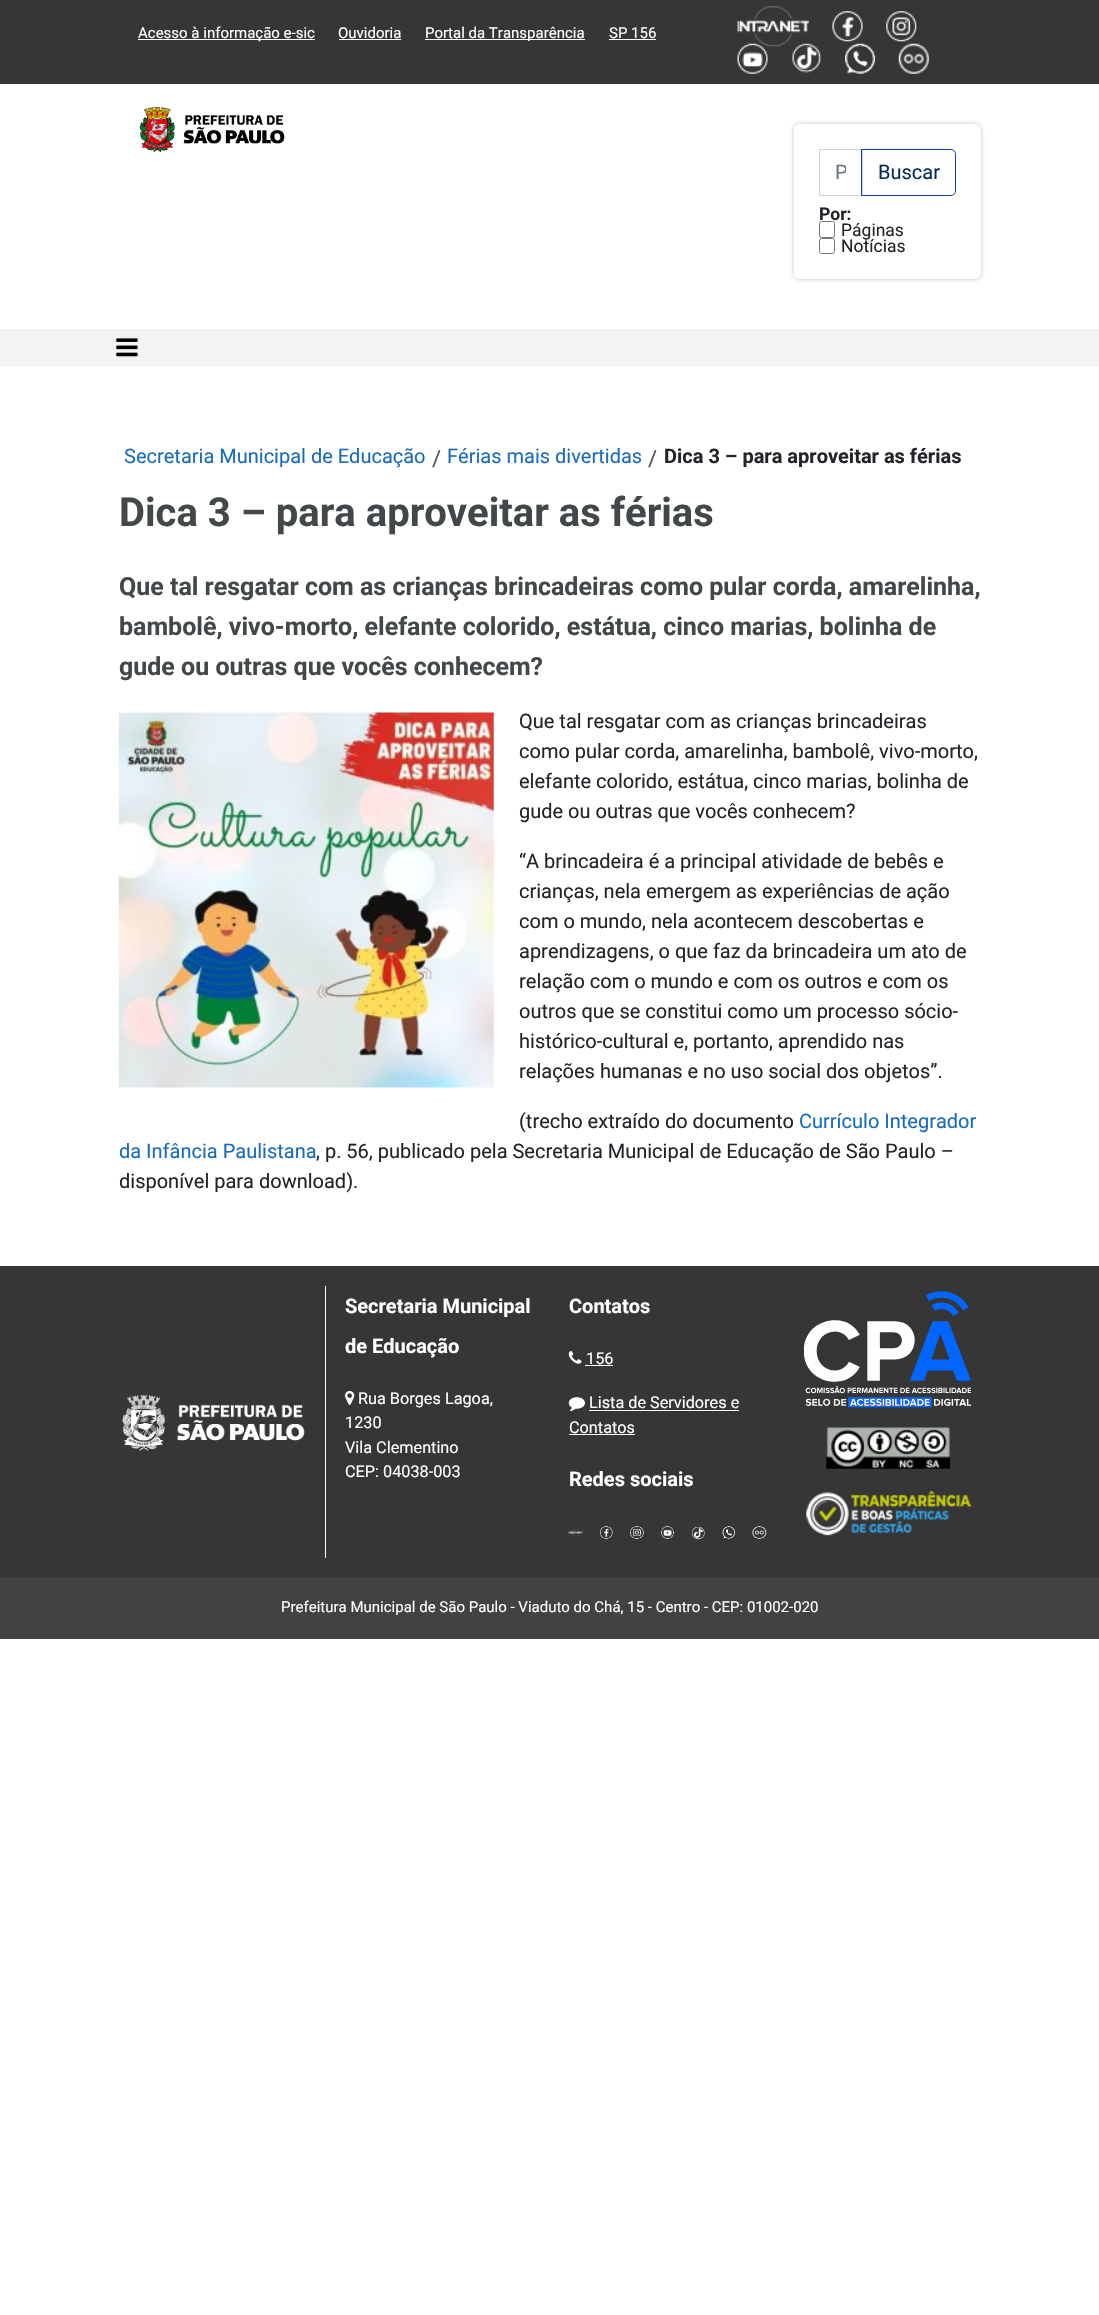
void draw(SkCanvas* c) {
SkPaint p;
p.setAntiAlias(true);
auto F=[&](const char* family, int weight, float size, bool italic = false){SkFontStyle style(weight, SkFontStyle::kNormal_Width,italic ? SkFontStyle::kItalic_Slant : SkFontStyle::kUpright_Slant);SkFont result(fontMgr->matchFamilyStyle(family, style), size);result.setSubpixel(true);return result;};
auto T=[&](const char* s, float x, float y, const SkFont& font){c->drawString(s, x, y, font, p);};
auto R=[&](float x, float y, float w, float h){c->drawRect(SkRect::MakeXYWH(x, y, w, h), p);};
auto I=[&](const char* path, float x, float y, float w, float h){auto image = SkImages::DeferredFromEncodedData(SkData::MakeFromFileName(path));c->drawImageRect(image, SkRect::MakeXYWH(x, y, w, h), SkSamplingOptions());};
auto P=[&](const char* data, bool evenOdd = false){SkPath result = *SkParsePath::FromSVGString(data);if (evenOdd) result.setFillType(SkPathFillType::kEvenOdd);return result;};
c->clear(0xffffffff);
p.setColor(0xff363636);
R(0,0,1099,84);
p.setColor(0xffffffff);
R(138,39,177,1);
auto f1 = F("Roboto",400,15);
T("Acesso à informação e-sic",138,38,f1);
T("Ouvidoria",338,38,f1);
R(339,39,62,1);
R(425,39,160,1);
T("Portal da Transparência",425,38,f1);
T("SP 156",609,38,f1);
R(609,39,47,1);
I("1.png",737,6,72,41);
I("2.png",832,11,31,31);
I("3.png",886,11,31,31);
I("4.png",737,43,31,31);
I("5.png",792,43,30,30);
I("6.png",845,43,30,31);
I("7.png",898,43,31,31);
I("8.png",139,106,146,47);
c->save();
c->clipPath(P("M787 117h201v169h-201zm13 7h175c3.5 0 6 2.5 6 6v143c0 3.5-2.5 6-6 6h-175c-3.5 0-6-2.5-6-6v-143c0-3.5 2.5-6 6-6z",true),true);
p.setColor(0xffc1bbbb);
p.setMaskFilter(SkMaskFilter::MakeBlur(kNormal_SkBlurStyle, 2));
c->drawRoundRect(SkRect::MakeXYWH(794,124,187,155),6,6,p);
p.setMaskFilter(nullptr);
c->restore();
p.setStroke(true);
p.setStrokeWidth(1);
p.setColor(0xffced4da);
c->drawRect(SkRect::MakeXYWH(819.5,149.5,43,46),p);
c->save();
c->clipRect(SkRect::MakeXYWH(835,161,11,24));
auto f2 = F("Roboto",400,20);
p.setStroke(false);
p.setColor(0xff6c757d);
T("P",835,179,f2);
c->restore();
p.setStroke(true);
p.setColor(0xff0f42b2);
c->drawPath(P("M861.5 149.5h89.5c2.5 0 4.5 2 4.5 4.5v37c0 2.5-2 4.5-4.5 4.5h-89.5z"),p);
p.setStroke(false);
p.setColor(0xff042b5b);
T("Buscar",878,179,f2);
auto f3 = F("Roboto",700,17.5);
p.setColor(0xff212529);
T("Por:",819,220,f3);
p.setStroke(true);
p.setColor(0xff767676);
c->drawRoundRect(SkRect::MakeXYWH(819.5,221.5,15,16),2,2,p);
auto f4 = F("Roboto",400,17.5);
p.setStroke(false);
p.setColor(0xff212529);
T("Páginas",841,236,f4);
p.setStroke(true);
p.setColor(0xff767676);
c->drawRoundRect(SkRect::MakeXYWH(819.5,238.5,15,15),2,2,p);
p.setStroke(false);
p.setColor(0xff212529);
T("Notícias",841,252,f4);
p.setColor(0xfff3f3f3);
R(0,329,1099,37);
I("9.png",116,338,22,19);
p.setColor(0xff196cbd);
T("Secretaria Municipal de Educação",124,463,f2);
auto f5 = F("Roboto",400,22);
p.setColor(0xff4f4f4f);
T("/",432,466,f5);
p.setColor(0xff196cbd);
T("Férias mais divertidas",447,463,f2);
p.setColor(0xff4f4f4f);
T("/",648,466,f5);
auto f6 = F("Roboto",700,20);
p.setColor(0xff212529);
T("Dica 3 – para aproveitar as férias",664,463,f6);
auto f7 = F("Roboto",700,40);
p.setColor(0xff42474a);
T("Dica 3 – para aproveitar as férias",119,526,f7);
auto f8 = F("Roboto",700,25);
T("Que tal resgatar com as crianças brincadeiras como pular corda, amarelinha,",119,595,f8);
T("bambolê, vivo-morto, elefante colorido, estátua, cinco marias, bolinha de",119,635,f8);
T("gude ou outras que vocês conhecem?",119,675,f8);
I("10.png",118,712,376,376);
p.setColor(0xff212529);
T("Que tal resgatar com as crianças brincadeiras",519,728,f2);
T("como pular corda, amarelinha, bambolê, vivo-morto,",519,758,f2);
T("elefante colorido, estátua, cinco marias, bolinha de",519,788,f2);
T("gude ou outras que vocês conhecem?",519,818,f2);
T("“A brincadeira é a principal atividade de bebês e",519,868,f2);
T("crianças, nela emergem as experiências de ação",519,898,f2);
T("com o mundo, nela acontecem descobertas e",519,928,f2);
T("aprendizagens, o que faz da brincadeira um ato de",519,958,f2);
T("relação com o mundo e com os outros e com os",519,988,f2);
T("outros que se constitui como um processo sócio-",519,1018,f2);
T("histórico-cultural e, portanto, aprendido nas",519,1048,f2);
T("relações humanas e no uso social dos objetos”.",519,1078,f2);
T("(trecho extraído do documento",519,1128,f2);
p.setColor(0xff196cbd);
T("Currículo Integrador",799,1128,f2);
T("da Infância Paulistana",119,1158,f2);
p.setColor(0xff212529);
T(", p. 56, publicado pela Secretaria Municipal de Educação de São Paulo –",316,1158,f2);
T("disponível para download).",119,1188,f2);
p.setColor(0xff363636);
R(0,1266,1099,312);
I("11.png",122,1395,183,56);
p.setColor(0xffffffff);
R(325,1286,1,272);
T("Secretaria Municipal",345,1313,f6);
T("de Educação",345,1353,f6);
I("12.png",345,1391,10,14);
auto f9 = F("Roboto",400,16.25);
T("Rua Borges Lagoa,",358,1404,f9);
T("1230",345,1428,f9);
T("Vila Clementino",345,1453,f9);
T("CEP: 04038-003",345,1477,f9);
T("Contatos",569,1313,f6);
I("13.png",568,1351,14,13);
T("156",586,1364,f9);
R(585,1365,28,1);
I("14.png",568,1397,17,14);
T("Lista de Servidores e",589,1408,f9);
R(589,1410,150,1);
T("Contatos",569,1433,f9);
R(569,1434,66,1);
T("Redes sociais",569,1486,f6);
I("15.png",568,1529,15,7);
I("16.png",600,1526,13,13);
I("17.png",630,1526,14,13);
I("18.png",661,1526,13,13);
I("19.png",692,1527,13,13);
I("20.png",722,1526,13,13);
I("21.png",752,1526,15,13);
I("22.png",804,1291,167,117);
I("23.png",826,1427,124,42);
I("24.png",806,1491,166,45);
p.setColor(0xff424242);
R(0,1578,1099,61);
p.setColor(0xffffffff);
T("Prefeitura Municipal de São Paulo - Viaduto do Chá, 15 - Centro - CEP: 01002-020",281,1612,f1);
}
